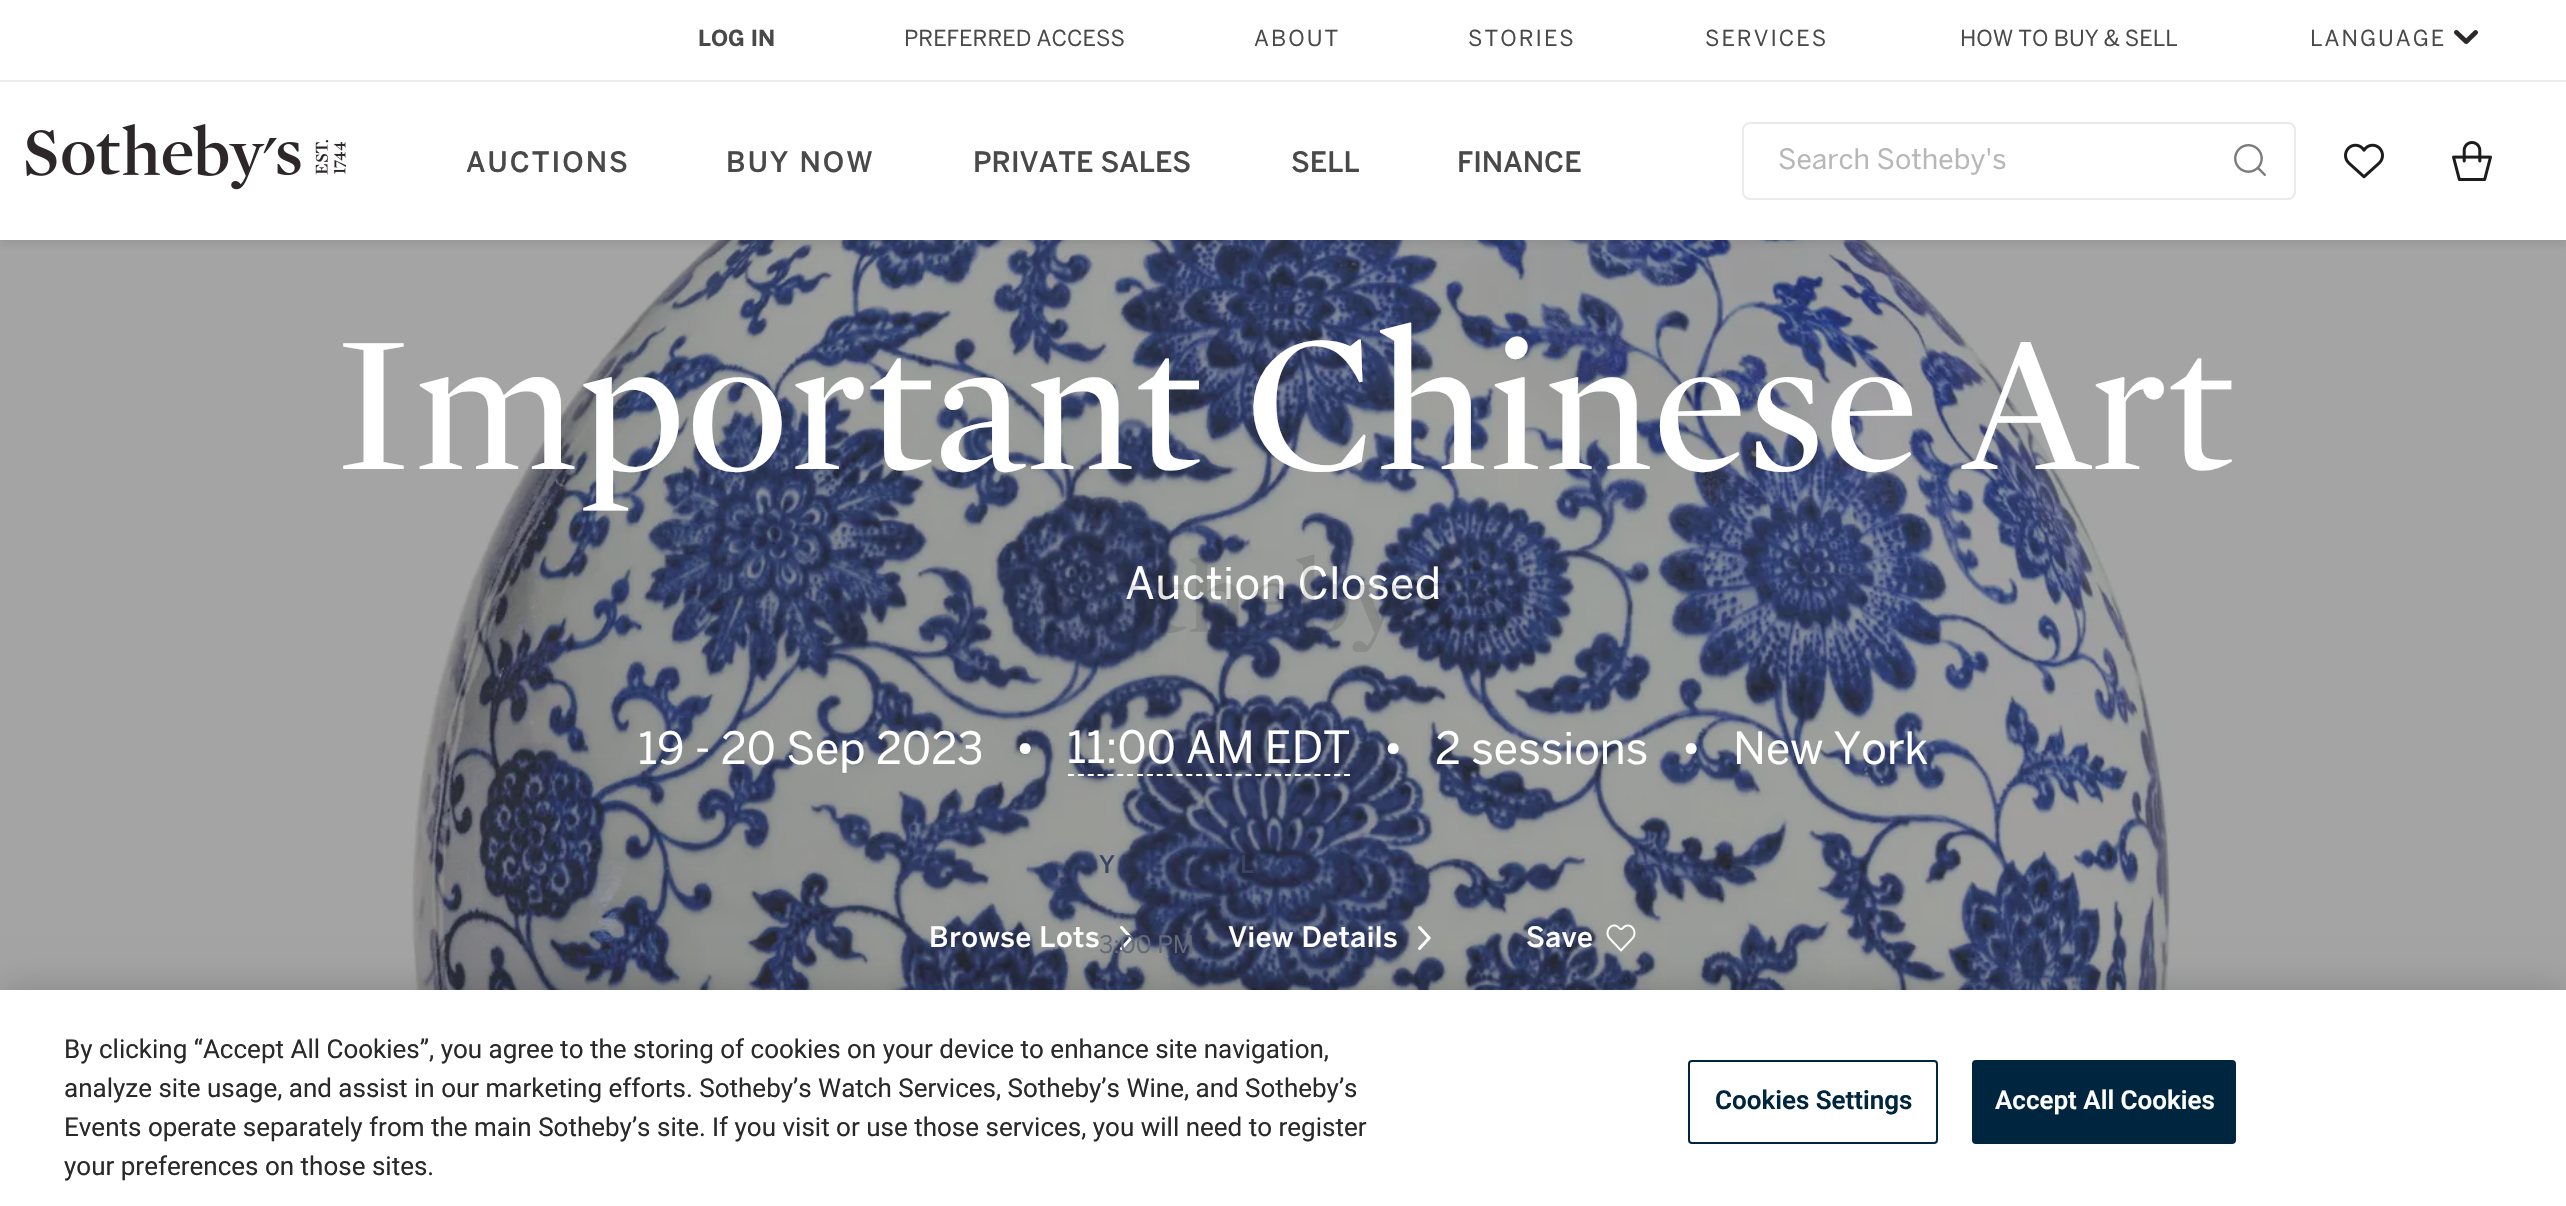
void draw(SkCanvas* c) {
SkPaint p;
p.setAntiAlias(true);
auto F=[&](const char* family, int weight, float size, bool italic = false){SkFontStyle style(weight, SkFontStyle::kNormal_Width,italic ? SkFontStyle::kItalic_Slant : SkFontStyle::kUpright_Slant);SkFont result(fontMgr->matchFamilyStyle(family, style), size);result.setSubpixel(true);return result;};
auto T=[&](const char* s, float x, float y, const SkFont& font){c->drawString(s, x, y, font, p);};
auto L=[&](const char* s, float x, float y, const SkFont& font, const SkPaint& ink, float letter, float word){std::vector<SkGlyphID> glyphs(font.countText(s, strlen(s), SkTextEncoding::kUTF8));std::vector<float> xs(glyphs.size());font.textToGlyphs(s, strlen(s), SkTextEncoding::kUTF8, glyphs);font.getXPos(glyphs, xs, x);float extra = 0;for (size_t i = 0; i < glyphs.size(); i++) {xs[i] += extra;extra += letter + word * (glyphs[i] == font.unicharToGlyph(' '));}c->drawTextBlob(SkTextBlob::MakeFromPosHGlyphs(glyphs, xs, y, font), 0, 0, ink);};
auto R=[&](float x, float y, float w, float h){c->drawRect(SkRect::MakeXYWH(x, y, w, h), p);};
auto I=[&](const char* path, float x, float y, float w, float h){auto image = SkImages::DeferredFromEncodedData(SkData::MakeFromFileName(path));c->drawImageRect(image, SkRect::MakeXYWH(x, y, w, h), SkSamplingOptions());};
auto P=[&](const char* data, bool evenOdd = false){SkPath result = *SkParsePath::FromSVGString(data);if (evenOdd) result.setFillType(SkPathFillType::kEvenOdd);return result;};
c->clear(0xffffffff);
I("6.png",0,240,2566,750);
p.setColor(0x1a1c1c1c);
p.setMaskFilter(SkMaskFilter::MakeBlur(kNormal_SkBlurStyle, 4));
c->drawRect(SkRect::MakeXYWH(0,4,2566,240),p);
p.setMaskFilter(nullptr);
p.setColor(0xffffffff);
R(0,0,2566,240);
I("1.png",26,124,320,66);
p.setColor(0xffededed);
R(0,80,2566,2);
auto f1 = F("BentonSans",700,22);
p.setColor(0xff494949);
T("LOG IN",698,46,f1);
auto f2 = F("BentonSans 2",400,22);
T("PREFERRED ACCESS",904,46,f2);
L("ABOUT",1254,46,f2,p,2,0);
L("STORIES",1468,46,f2,p,2,0);
L("SERVICES",1705,46,f2,p,2,0);
T("HOW TO BUY & SELL",1960,46,f2);
I("2.png",2454,30,24,14);
L("LANGUAGE",2310,46,f2,p,2,0);
auto f3 = F("BentonSans 2",500,28);
L("AUCTIONS",466,172,f3,p,2,0);
L("BUY NOW",726,172,f3,p,2,0);
T("PRIVATE SALES",973,172,f3);
T("SELL",1291,172,f3);
T("FINANCE",1457,172,f3);
I("3.png",2452,141,40,40);
p.setStroke(true);
p.setStrokeWidth(2);
p.setColor(0xffeaeaea);
c->drawRoundRect(SkRect::MakeXYWH(1743,123,552,76),7,7,p);
auto f4 = F("BentonSans 2",400,28);
p.setStroke(false);
p.setColor(0xffb7b7b7);
T("Search Sotheby's",1778,169,f4);
I("4.png",2234,144,32,32);
I("5.png",2344,143,40,36);
auto f5 = F("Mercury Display",400,197.6);
p.setColor(0xffffffff);
T("Important Chinese Art",334,469,f5);
auto f6 = F("Benton Sans",400,44);
L("Auction Closed",1125,599,f6,p,.5,0);
T("19 - 20 Sep 2023",638,764,f6);
T("•",1015,764,f6);
p.setStroke(true);
p.setPathEffect(SkDashPathEffect::Make({{6,3.86f}}, 0));
c->drawPath(P("M1068 775h282"),p);
p.setPathEffect(nullptr);
p.setStroke(false);
T("11:00 AM EDT",1067,763,f6);
auto f7 = F("Benton Sans",500,24);
p.setColor(0xff3a4464);
T("Y",1099,873,f7);
T("L",1240,873,f7);
I("7.png",1120,926,13,24);
auto f8 = F("Benton Sans",400,24);
p.setColor(0xff62697a);
T("3:00 PM",1099,953,f8);
p.setColor(0xffffffff);
T("•",1383,764,f6);
T("2 sessions",1435,764,f6);
T("•",1681,764,f6);
T("New York",1733,764,f6);
auto f9 = F("Benton Sans",500,28);
L("Browse Lots",929,947,f9,p,.5,0);
L("View Details",1228,947,f9,p,.5,0);
I("8.png",1418,926,13,24);
L("Save",1526,947,f9,p,.5,0);
I("9.png",1606,924,30,28);
I("10.png",1044,554,476,98);
p.setColor(0x33000000);
p.setMaskFilter(SkMaskFilter::MakeBlur(kNormal_SkBlurStyle, 18));
c->drawRect(SkRect::MakeXYWH(0,990,2566,216),p);
p.setMaskFilter(nullptr);
p.setColor(0xffffffff);
R(0,990,2566,216);
auto f10 = F("Roboto",400,26);
p.setColor(0xff292929);
T("By clicking “Accept All Cookies”, you agree to the storing of cookies on your device to enhance site navigation,",64,1058,f10);
T("analyze site usage, and assist in our marketing efforts. Sotheby’s Watch Services, Sotheby’s Wine, and Sotheby’s",64,1097,f10);
T("Events operate separately from the main Sotheby’s site.",64,1136,f10);
T("If you visit or use those services, you will need to register",712,1136,f10);
T("your preferences on those sites.",64,1175,f10);
p.setStroke(true);
p.setColor(0xff00253e);
c->drawRoundRect(SkRect::MakeXYWH(1689,1061,248,82),3,3,p);
auto f11 = F("Roboto",600,26);
p.setStroke(false);
T("Cookies Settings",1715,1109,f11);
c->drawRoundRect(SkRect::MakeXYWH(1973,1061,262,82),3,3,p);
p.setStroke(true);
c->drawRoundRect(SkRect::MakeXYWH(1973,1061,262,82),3,3,p);
p.setStroke(false);
p.setColor(0xffffffff);
T("Accept All Cookies",1995,1109,f11);
}
